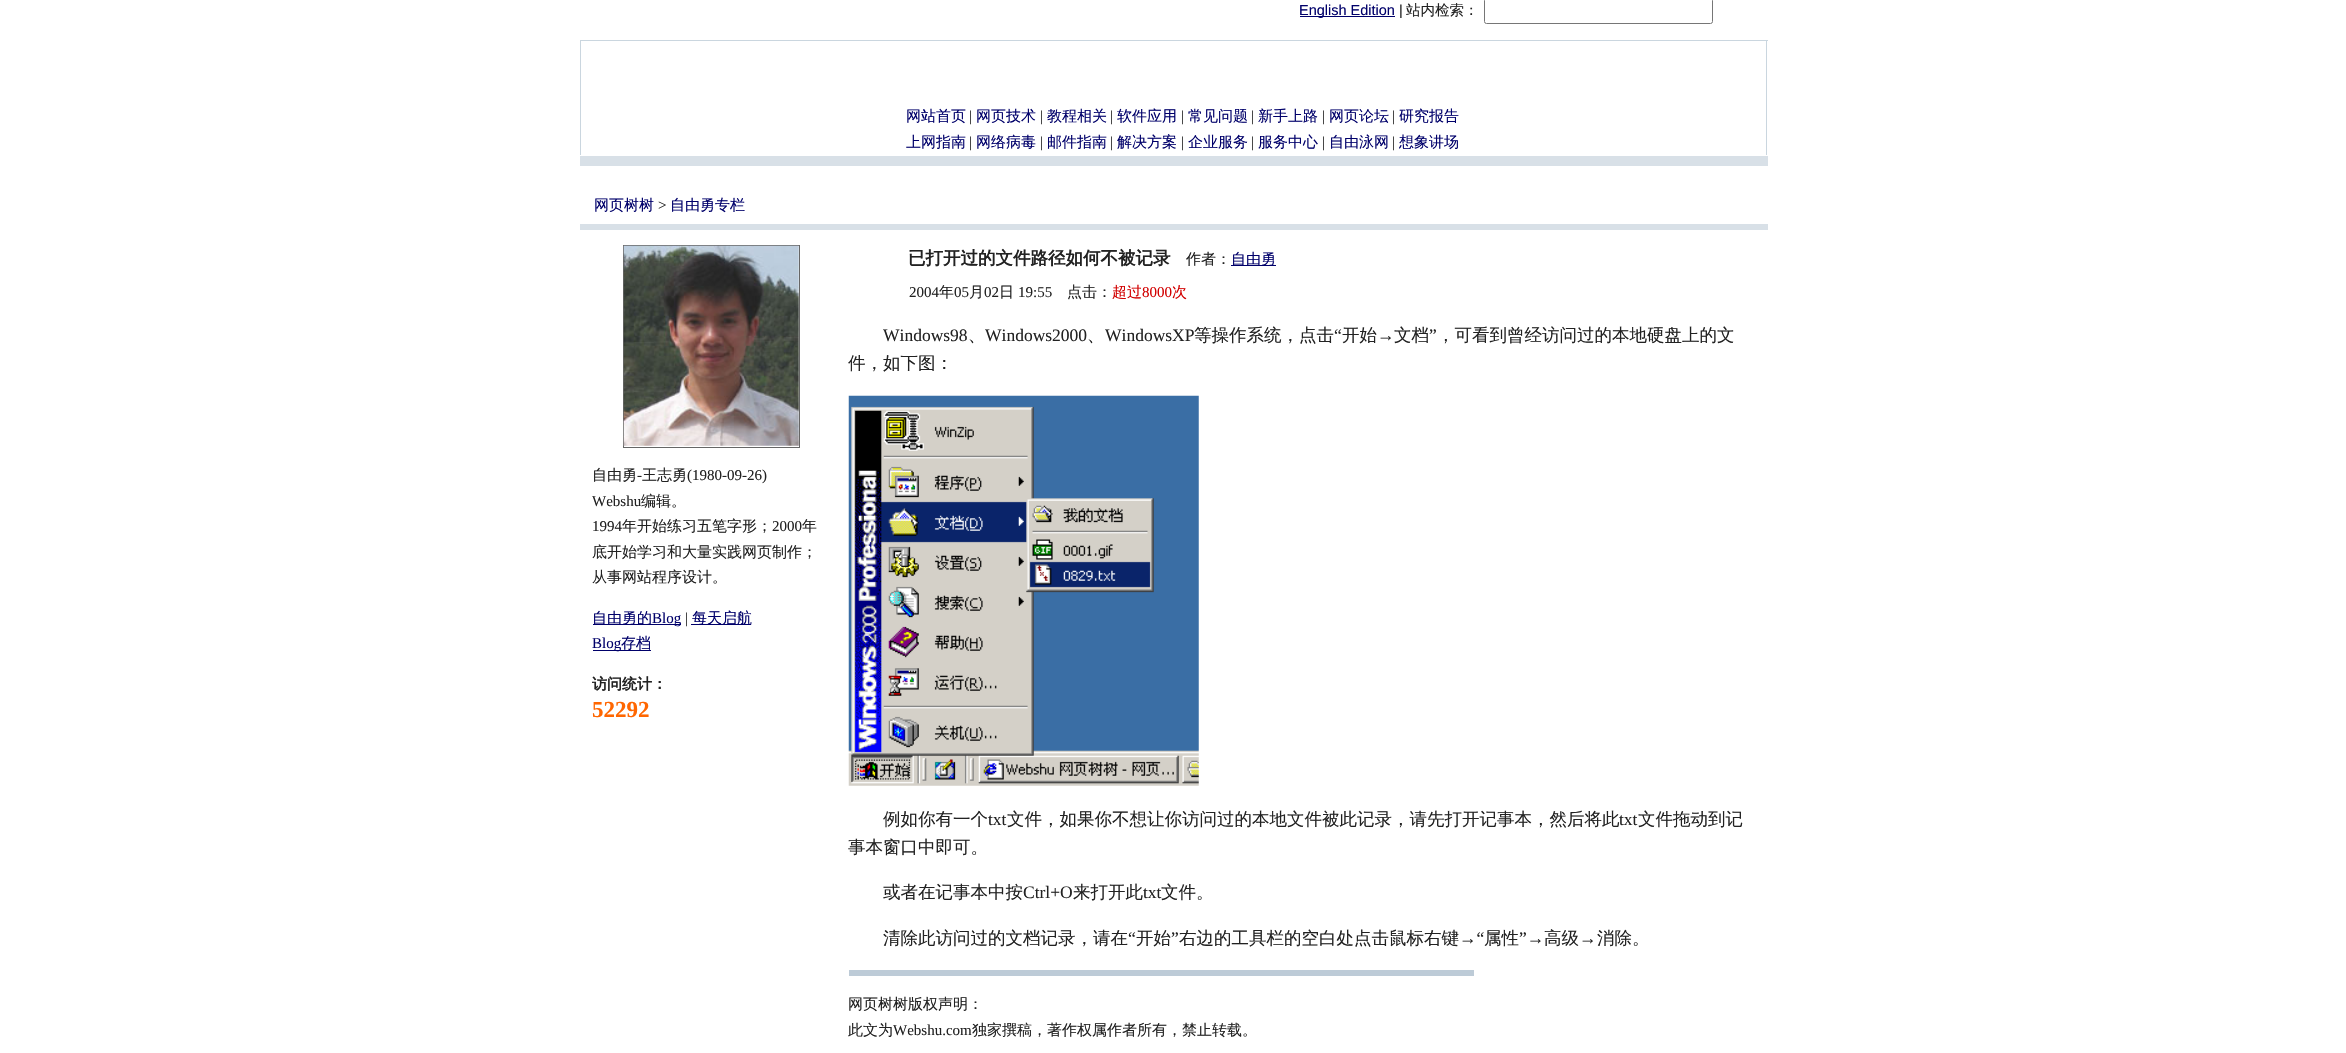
void draw(SkCanvas* c) {
SkPaint p;
p.setAntiAlias(true);
auto F=[&](const char* family, int weight, float size, bool italic = false){SkFontStyle style(weight, SkFontStyle::kNormal_Width,italic ? SkFontStyle::kItalic_Slant : SkFontStyle::kUpright_Slant);SkFont result(fontMgr->matchFamilyStyle(family, style), size);result.setSubpixel(true);return result;};
auto T=[&](const char* s, float x, float y, const SkFont& font){c->drawString(s, x, y, font, p);};
auto R=[&](float x, float y, float w, float h){c->drawRect(SkRect::MakeXYWH(x, y, w, h), p);};
auto I=[&](const char* path, float x, float y, float w, float h){auto image = SkImages::DeferredFromEncodedData(SkData::MakeFromFileName(path));c->drawImageRect(image, SkRect::MakeXYWH(x, y, w, h), SkSamplingOptions());};
c->clear(0xffffffff);
p.setColor(0xff00006a);
R(1300,16,95,1);
auto f1 = F("Liberation Sans",400,14.5);
T("English Edition",1299,15,f1);
p.setColor(0xff222222);
T("|",1399,15,f1);
auto f2 = F("WenQuanYi Zen Hei",500,14.5);
T("站内检索：",1406,15,f2);
p.setStroke(true);
p.setStrokeWidth(1);
p.setColor(0xff767676);
c->drawRoundRect(SkRect::MakeXYWH(1484.5,-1.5,228,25),2,2,p);
p.setStroke(false);
p.setColor(0xffcad6df);
R(580,40,1188,1);
R(1766,40,1,115);
R(580,40,1,115);
auto f3 = F("WenQuanYi Zen Hei",500,15);
p.setColor(0xff00006a);
T("网站首页",906,121,f3);
auto f4 = F("Liberation Serif",400,15);
p.setColor(0xff222222);
T("|",969,121,f4);
p.setColor(0xff00006a);
T("网页技术",976,121,f3);
p.setColor(0xff222222);
T("|",1040,121,f4);
p.setColor(0xff00006a);
T("教程相关",1047,121,f3);
p.setColor(0xff222222);
T("|",1110,121,f4);
p.setColor(0xff00006a);
T("软件应用",1117,121,f3);
p.setColor(0xff222222);
T("|",1181,121,f4);
p.setColor(0xff00006a);
T("常见问题",1188,121,f3);
p.setColor(0xff222222);
T("|",1251,121,f4);
p.setColor(0xff00006a);
T("新手上路",1258,121,f3);
p.setColor(0xff222222);
T("|",1322,121,f4);
p.setColor(0xff00006a);
T("网页论坛",1329,121,f3);
p.setColor(0xff222222);
T("|",1392,121,f4);
p.setColor(0xff00006a);
T("研究报告",1399,121,f3);
T("上网指南",906,147,f3);
p.setColor(0xff222222);
T("|",969,147,f4);
p.setColor(0xff00006a);
T("网络病毒",976,147,f3);
p.setColor(0xff222222);
T("|",1040,147,f4);
p.setColor(0xff00006a);
T("邮件指南",1047,147,f3);
p.setColor(0xff222222);
T("|",1110,147,f4);
p.setColor(0xff00006a);
T("解决方案",1117,147,f3);
p.setColor(0xff222222);
T("|",1181,147,f4);
p.setColor(0xff00006a);
T("企业服务",1188,147,f3);
p.setColor(0xff222222);
T("|",1251,147,f4);
p.setColor(0xff00006a);
T("服务中心",1258,147,f3);
p.setColor(0xff222222);
T("|",1322,147,f4);
p.setColor(0xff00006a);
T("自由泳网",1329,147,f3);
p.setColor(0xff222222);
T("|",1392,147,f4);
p.setColor(0xff00006a);
T("想象讲场",1399,147,f3);
p.setColor(0xffd8e0e7);
R(580,156,1188,10);
p.setColor(0xff00006a);
T("网页树树",594,210,f3);
p.setColor(0xff222222);
T(">",658,210,f4);
p.setColor(0xff00006a);
T("自由勇专栏",670,210,f3);
p.setColor(0xffd8e0e7);
R(580,224,1188,6);
p.setStroke(true);
p.setColor(0xff666666);
c->drawRect(SkRect::MakeXYWH(623.5,245.5,176,202),p);
I("1.png",623,245,176,201);
p.setStroke(false);
p.setColor(0xff222222);
T("自由勇",592,480,f3);
T("-",637,480,f4);
T("王志勇",642,480,f3);
T("(1980-09-26)",687,480,f4);
T("Webshu",592,506,f4);
T("编辑。",641,506,f3);
T("1994",592,531,f4);
T("年开始练习五笔字形；",622,531,f3);
T("2000",772,531,f4);
T("年",802,531,f3);
T("底开始学习和大量实践网页制作；",592,557,f3);
T("从事网站程序设计。",592,582,f3);
p.setColor(0xff00006a);
R(593,624,88,1);
T("自由勇的",592,623,f3);
T("Blog",652,623,f4);
p.setColor(0xff222222);
T("|",685,623,f4);
p.setColor(0xff00006a);
R(691,624,60,1);
T("每天启航",692,623,f3);
R(593,650,58,1);
T("Blog",592,648,f4);
T("存档",621,648,f3);
auto f5 = F("WenQuanYi Zen Hei",700,15);
p.setColor(0xff222222);
T("访问统计：",592,689,f5);
auto f6 = F("Liberation Serif",700,23);
p.setColor(0xffff6600);
T("52292",592,717,f6);
auto f7 = F("WenQuanYi Zen Hei",700,17.5);
p.setColor(0xff222222);
T("已打开过的文件路径如何不被记录",908,264,f7);
T("作者：",1186,264,f3);
p.setColor(0xff00006a);
R(1231,265,45,1);
T("自由勇",1231,264,f3);
p.setColor(0xff222222);
T("2004",909,297,f4);
T("年",939,297,f3);
T("05",954,297,f4);
T("月",969,297,f3);
T("02",984,297,f4);
T("日",999,297,f3);
T("19:55",1018,297,f4);
T("点击：",1067,297,f3);
p.setColor(0xffd20000);
T("超过",1112,297,f3);
T("8000",1142,297,f4);
T("次",1172,297,f3);
auto f8 = F("Liberation Serif",400,17.5);
p.setColor(0xff222222);
T("Windows98",883,341,f8);
T("Windows2000",985,341,f8);
T("WindowsXP",1105,341,f8);
auto f9 = F("WenQuanYi Zen Hei",500,17.5);
T("等操作系统，点击",1194,341,f9);
T("“",1334,341,f8);
T("开始",1342,341,f9);
T("文档",1394,341,f9);
T("”",1429,341,f8);
T("，可看到曾经访问过的本地硬盘上的文",1437,341,f9);
T("→",1377,341,f8);
T("、",968,341,f9);
T("、",1087,341,f9);
T("件，如下图：",848,369,f9);
I("2.png",848,395,351,391);
T("例如你有一个",883,825,f9);
T("txt",988,825,f8);
T("文件，如果你不想让你访问过的本地文件被此记录，请先打开记事本，然后将此",1007,825,f9);
T("txt",1619,825,f8);
T("文件拖动到记",1638,825,f9);
T("事本窗口中即可。",848,853,f9);
T("或者在记事本中按",883,898,f9);
T("Ctrl+O",1023,898,f8);
T("来打开此",1073,898,f9);
T("txt",1143,898,f8);
T("文件。",1161,898,f9);
T("清除此访问过的文档记录，请在",883,944,f9);
T("“",1128,944,f8);
T("开始",1136,944,f9);
T("”",1171,944,f8);
T("右边的工具栏的空白处点击鼠标右键",1179,944,f9);
T("→“",1459,944,f8);
T("属性",1484,944,f9);
T("”→",1519,944,f8);
T("高级",1544,944,f9);
T("→",1579,944,f8);
T("消除。",1597,944,f9);
p.setColor(0xffbdcbd7);
R(849,970,625,6);
p.setColor(0xff222222);
T("网页树树版权声明：",848,1009,f3);
T("此文为",848,1035,f3);
T("Webshu.com",893,1035,f4);
T("独家撰稿，著作权属作者所有，禁止转载。",972,1035,f3);
}
